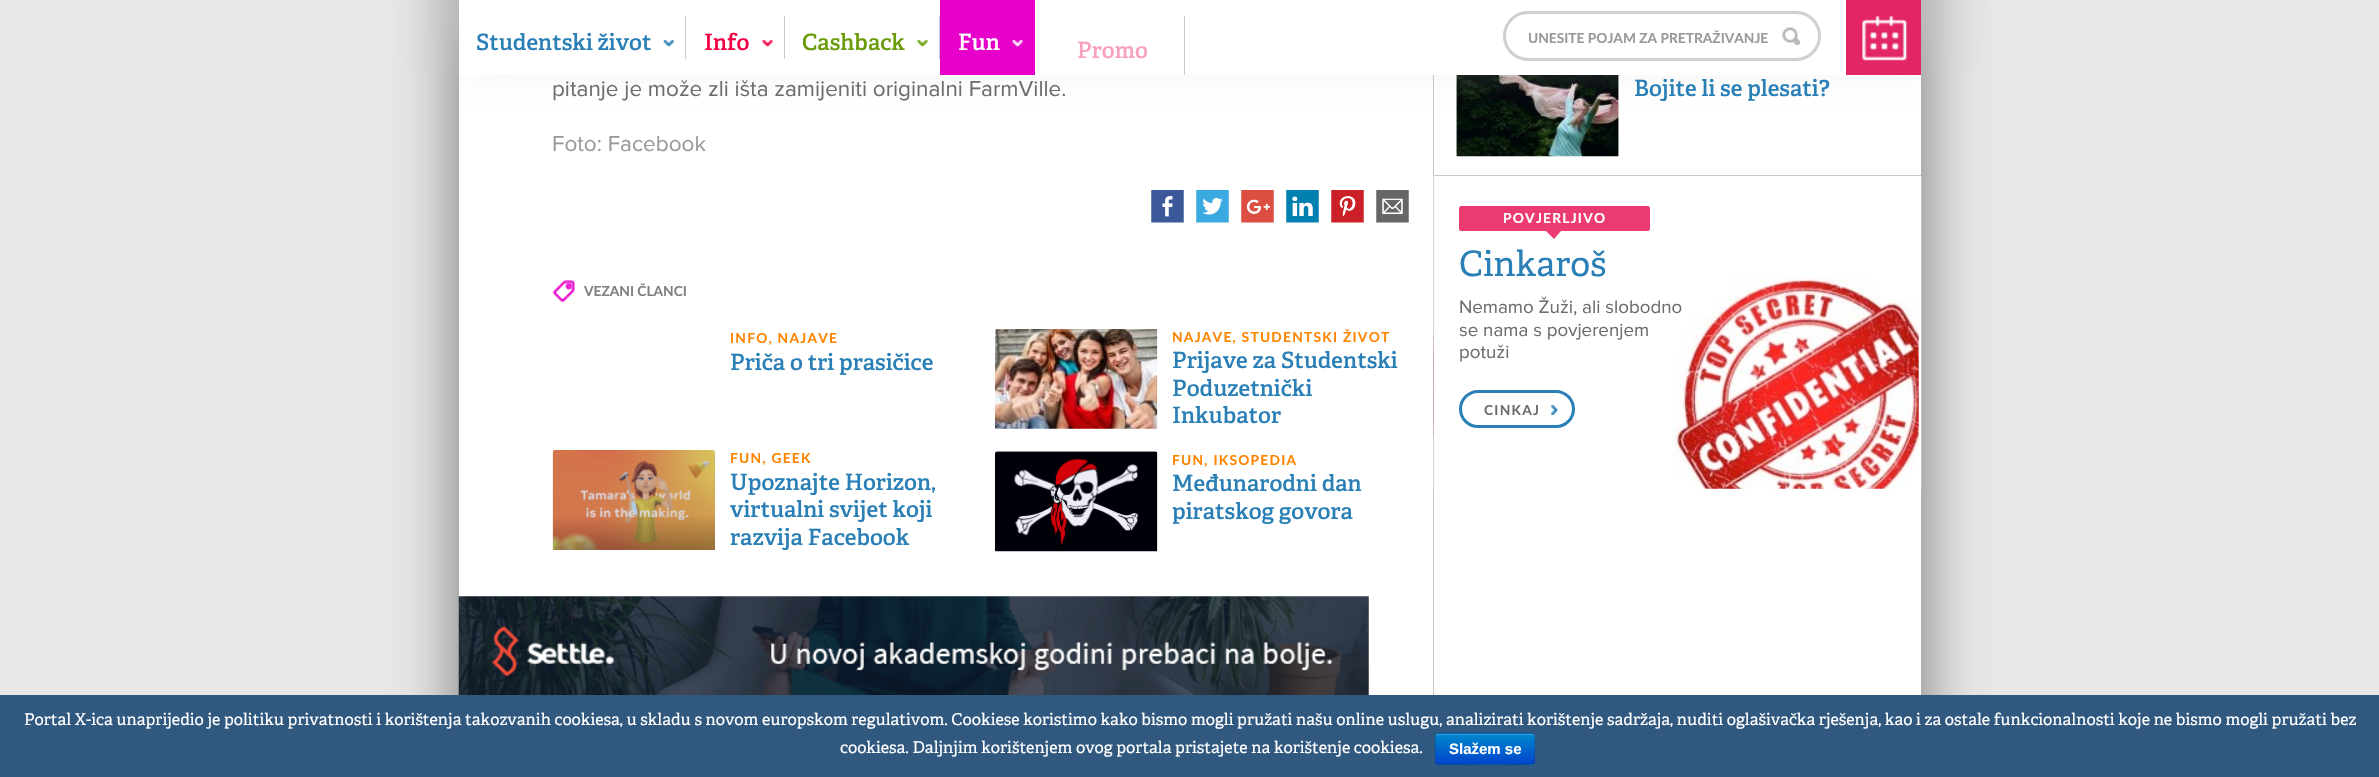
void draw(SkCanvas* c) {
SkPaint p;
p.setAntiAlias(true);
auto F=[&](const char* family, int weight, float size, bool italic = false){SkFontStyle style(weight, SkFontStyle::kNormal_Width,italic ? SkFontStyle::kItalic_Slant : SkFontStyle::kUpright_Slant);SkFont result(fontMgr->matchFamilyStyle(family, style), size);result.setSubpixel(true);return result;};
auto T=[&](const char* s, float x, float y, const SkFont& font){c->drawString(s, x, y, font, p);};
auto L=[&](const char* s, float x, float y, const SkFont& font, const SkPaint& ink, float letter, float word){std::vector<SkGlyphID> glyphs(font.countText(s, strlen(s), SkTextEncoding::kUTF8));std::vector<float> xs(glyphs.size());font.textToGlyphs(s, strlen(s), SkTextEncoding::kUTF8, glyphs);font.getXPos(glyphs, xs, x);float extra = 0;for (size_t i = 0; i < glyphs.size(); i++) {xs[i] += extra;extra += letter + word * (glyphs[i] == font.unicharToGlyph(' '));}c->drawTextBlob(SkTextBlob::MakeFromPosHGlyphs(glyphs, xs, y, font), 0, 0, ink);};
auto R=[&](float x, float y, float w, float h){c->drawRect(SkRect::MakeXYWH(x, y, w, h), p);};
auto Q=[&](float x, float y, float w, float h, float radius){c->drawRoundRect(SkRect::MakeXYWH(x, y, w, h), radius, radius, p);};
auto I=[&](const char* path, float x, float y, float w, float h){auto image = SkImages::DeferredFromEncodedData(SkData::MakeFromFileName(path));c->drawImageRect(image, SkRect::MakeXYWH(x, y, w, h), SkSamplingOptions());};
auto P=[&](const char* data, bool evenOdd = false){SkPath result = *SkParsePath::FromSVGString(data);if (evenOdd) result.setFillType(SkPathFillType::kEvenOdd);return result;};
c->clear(0xffe8e8e8);
p.setColor(0x80000000);
p.setMaskFilter(SkMaskFilter::MakeBlur(kNormal_SkBlurStyle, 31));
c->drawRect(SkRect::MakeXYWH(459,-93,1462,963),p);
p.setMaskFilter(nullptr);
p.setColor(0xffffffff);
R(459,75,1462,620);
p.setColor(0xffc8c8c8);
R(1433,75,1,620);
I("18.png",1456,75,163,82);
p.setColor(0xffd0d0d0);
p.setMaskFilter(SkMaskFilter::MakeBlur(kNormal_SkBlurStyle, 31));
c->drawRect(SkRect::MakeXYWH(459,-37,1462,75),p);
p.setMaskFilter(nullptr);
p.setColor(0xffffffff);
R(459,0,1387,75);
auto f1 = F("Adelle",600,22.5);
p.setColor(0xff297fb6);
T("Studentski život",476,50,f1);
I("1.png",663,40,11,7);
p.setColor(0xffc9c9c9);
R(685,16,1,43);
p.setColor(0xfff10044);
T("Info",704,50,f1);
I("2.png",761,40,12,7);
p.setColor(0xffc9c9c9);
R(784,16,1,43);
p.setColor(0xff6a9c09);
T("Cashback",802,50,f1);
I("3.png",916,40,12,7);
p.setColor(0xffc9c9c9);
R(939,16,1,43);
p.setColor(0xffe700c9);
R(940,0,95,75);
p.setColor(0xffffffff);
T("Fun",958,50,f1);
I("4.png",1011,40,12,7);
p.setColor(0xfff8a1be);
T("Promo",1077,58,f1);
p.setColor(0xffc9c9c9);
R(1184,16,1,59);
p.setStroke(true);
p.setStrokeWidth(3);
p.setColor(0xffcfcfcf);
c->drawRoundRect(SkRect::MakeXYWH(1504.5,12.5,315,47),23.5,23.5,p);
I("5.png",1782,27,18,18);
auto f2 = F("Lato",700,13.75);
p.setStroke(false);
p.setColor(0xff999999);
T("UNESITE POJAM ZA PRETRAŽIVANJE",1528,43,f2);
p.setColor(0xffe32568);
R(1846,0,75,75);
I("6.png",1862,16,46,45);
auto f3 = F("Proxima Nova",400,22.5);
p.setColor(0xff6d6d6d);
T("pitanje je može zli išta zamijeniti originalni FarmVille.",552,96,f3);
p.setColor(0xff999999);
T("Foto: Facebook",552,151,f3);
I("7.png",1151,190,33,33);
I("8.png",1196,190,33,33);
I("9.png",1241,190,33,33);
I("10.png",1286,190,33,33);
I("11.png",1331,190,33,33);
I("12.png",1376,190,33,33);
I("13.png",552,280,23,23);
p.setColor(0xff808080);
T("VEZANI ČLANCI",584,296,f2);
p.setColor(0xffff8400);
L("INFO, NAJAVE",730,343,f2,p,1.25,0);
p.setColor(0xff297fb6);
T("Priča o tri prasičice",730,370,f1);
I("14.png",995,329,163,100);
p.setColor(0xffff8400);
L("NAJAVE, STUDENTSKI ŽIVOT",1172,342,f2,p,1.25,0);
p.setColor(0xff297fb6);
T("Prijave za Studentski",1172,368,f1);
T("Poduzetnički",1172,396,f1);
T("Inkubator",1172,423,f1);
I("15.png",552,450,163,100);
p.setColor(0xffff8400);
L("FUN, GEEK",730,463,f2,p,1.25,0);
p.setColor(0xff297fb6);
T("Upoznajte Horizon,",730,490,f1);
T("virtualni svijet koji",730,517,f1);
T("razvija Facebook",730,545,f1);
I("16.png",995,451,163,101);
p.setColor(0xffff8400);
L("FUN, IKSOPEDIA",1172,465,f2,p,1.25,0);
p.setColor(0xff297fb6);
T("Međunarodni dan",1172,491,f1);
T("piratskog govora",1172,519,f1);
I("17.png",458,596,911,99);
p.setColor(0xffc8c8c8);
R(1434,175,487,1);
p.setColor(0xff297fb6);
T("Bojite li se plesati?",1634,96,f1);
I("19.png",1433,176,489,313);
p.setColor(0xffeb3c72);
Q(1459,206,191,25,2.5);
p.setColor(0xffffffff);
L("POVJERLJIVO",1503,223,f2,p,1.25,0);
p.setColor(0xffeb3c72);
c->drawPath(P("M1546 231h15l-7 8z"),p);
auto f4 = F("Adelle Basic",400,35);
p.setColor(0xff297fb6);
T("Cinkaroš",1459,276,f4);
auto f5 = F("Proxima Nova",400,18.75);
p.setColor(0xff6d6d6d);
T("Nemamo Žuži, ali slobodno",1459,313,f5);
T("se nama s povjerenjem",1459,336,f5);
T("potuži",1459,358,f5);
p.setStroke(true);
p.setColor(0xff297fb6);
c->drawRoundRect(SkRect::MakeXYWH(1460.5,391.5,113,35),17.5,17.5,p);
p.setStroke(false);
p.setColor(0xff6d6d6d);
L("CINKAJ",1484,415,f2,p,1.25,0);
I("20.png",1551,405,7,10);
p.setColor(0xff31597f);
R(0,695,2379,82);
auto f6 = F("Adelle Basic",400,16.25);
p.setColor(0xffffffff);
T("Portal X-ica unaprijedio je politiku privatnosti i korištenja takozvanih cookiesa, u skladu s novom europskom regulativom. Cookiese koristimo kako bismo mogli pružati našu online uslugu, analizirati korištenje sadržaja, nuditi oglašivačka rješenja, kao i za ostale funkcionalnosti koje ne bismo mogli pružati bez",24,725,f6);
T("cookiesa. Daljnjim korištenjem ovog portala pristajete na korištenje cookiesa.",840,753,f6);
p.setColor(0xff006dcc);
Q(1435,733,100,32,4);
c->save();
c->clipPath(P("M1439 733h92c2 0 4 2 4 4v24c0 2-2 4-4 4h-92c-2 0-4-2-4-4v-24c0-2 2-4 4-4z"),true);
{
const SkColor colors[] = {0xff0088cc,0xff0044cc};
const float stops[] = {0,1};
const SkPoint ends[] = {{1485,734}, {1485,764}};
p.setShader(SkGradientShader::MakeLinear(ends, colors, stops, 2, SkTileMode::kClamp));
p.setAlpha(255);
}
R(1435,734,100,30);
c->restore();
p.setShader(nullptr);
p.setColor(0xff339fd6);
c->drawPath(P("M1439 735h92c2 0 3 1 3 3v-2c0-1-1-2-2-2h-94c-1 0-2 1-2 2v2c0-2 1-3 3-3z"),p);
p.setStroke(true);
p.setStrokeWidth(1.2);
p.setColor(0x40000000);
c->drawPath(P("M1533.5 763.5h-.5c-2 2-70.5 1-79 1h-15l-2.5-1"),p);
p.setColor(0x1a000000);
c->drawPath(P("M1436.5 763.5c-2-2-1-12-1-14.5c0-19.5-2.5-16 18.5-16h62c23 0 18.5-3 18.5 20c0 2.5 1 8.5-1 10.5"),p);
auto f7 = F("Liberation Sans",700,15);
p.setStroke(false);
p.setColor(0xffffffff);
T("Slažem se",1449,754,f7);
}
